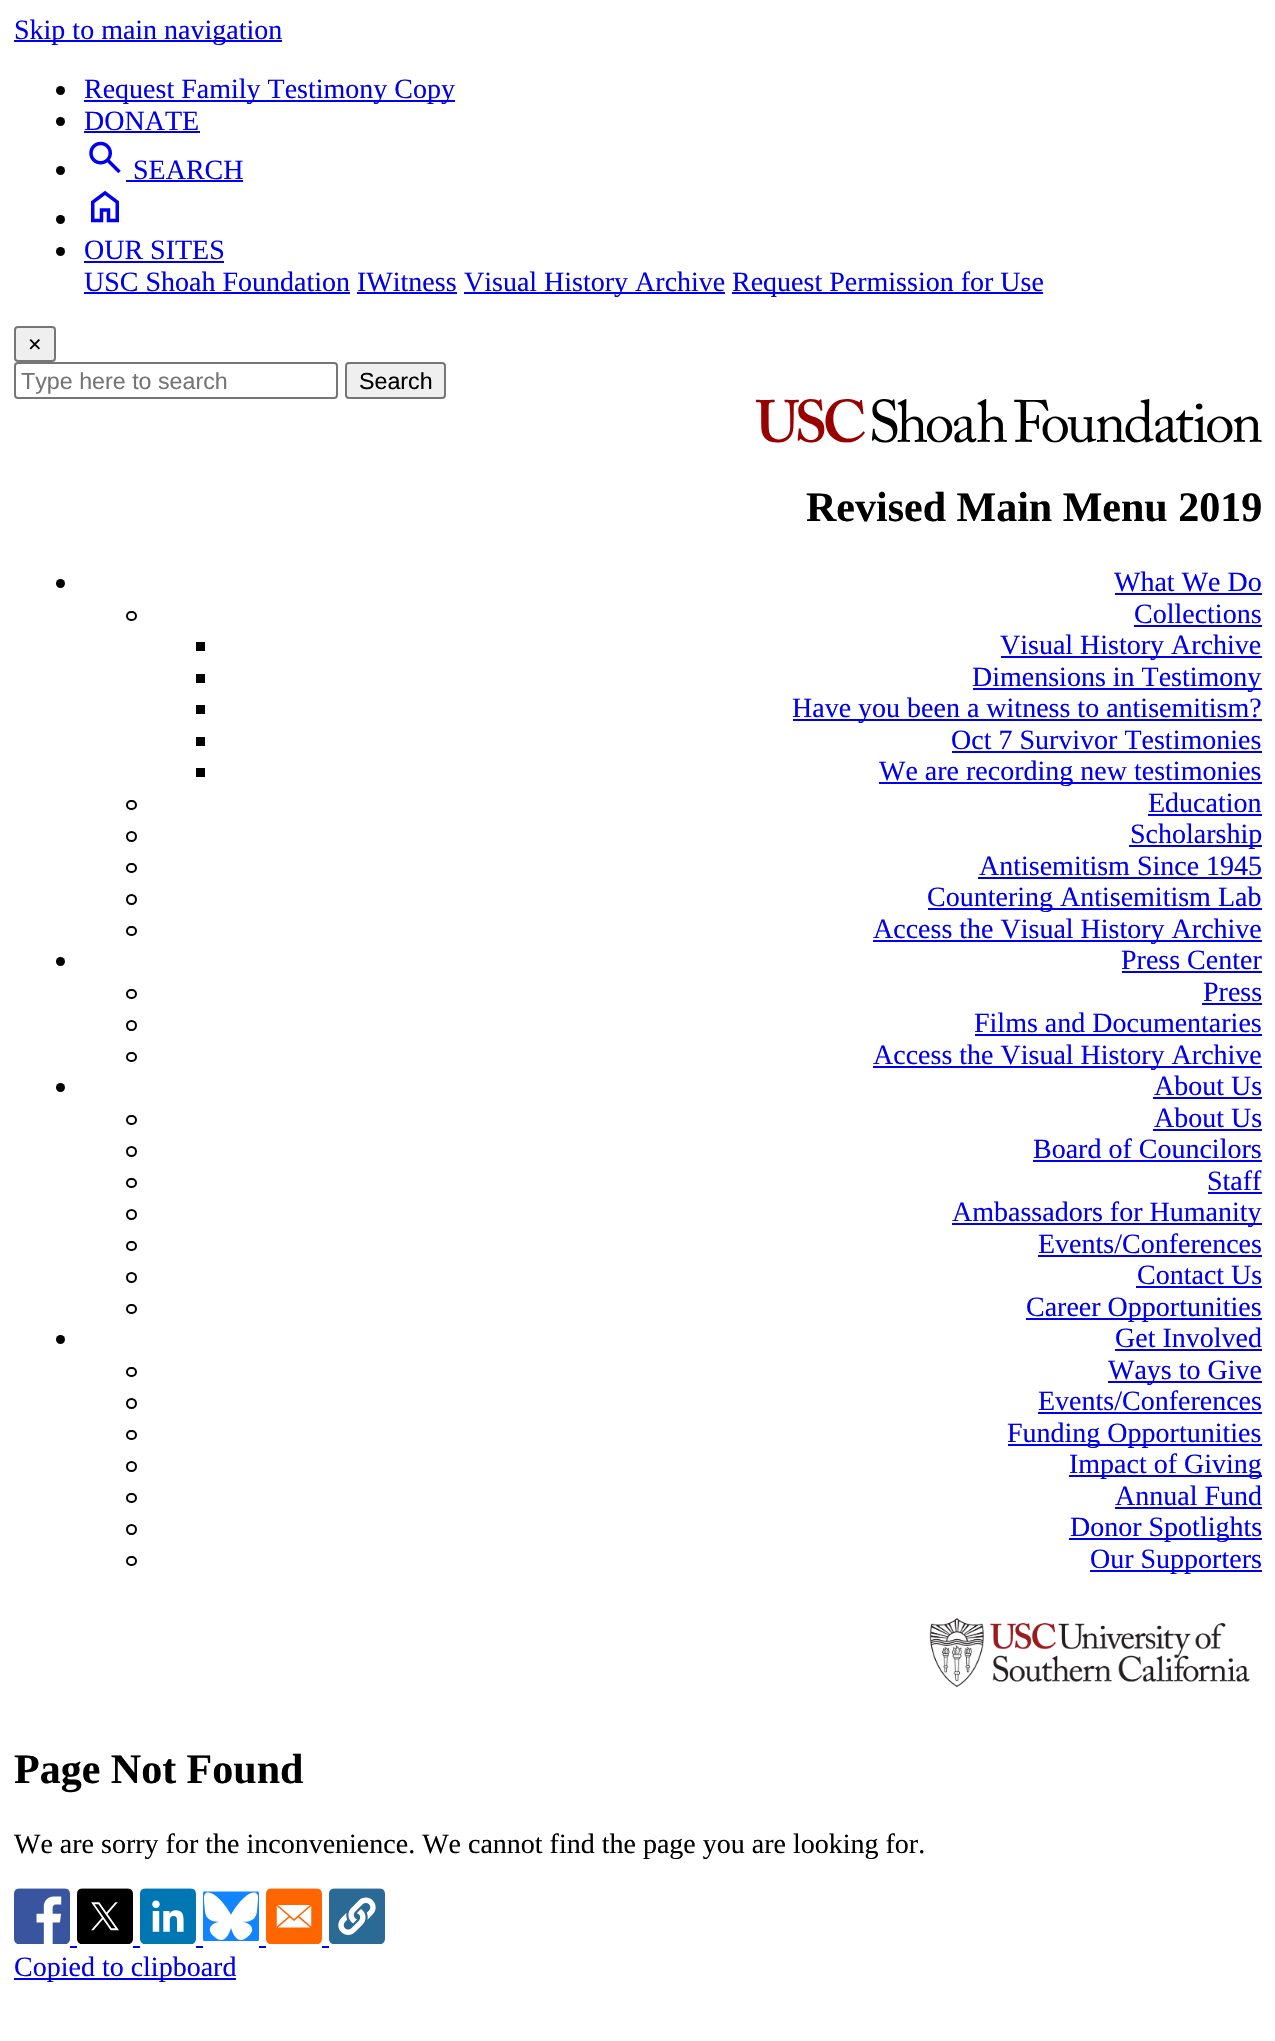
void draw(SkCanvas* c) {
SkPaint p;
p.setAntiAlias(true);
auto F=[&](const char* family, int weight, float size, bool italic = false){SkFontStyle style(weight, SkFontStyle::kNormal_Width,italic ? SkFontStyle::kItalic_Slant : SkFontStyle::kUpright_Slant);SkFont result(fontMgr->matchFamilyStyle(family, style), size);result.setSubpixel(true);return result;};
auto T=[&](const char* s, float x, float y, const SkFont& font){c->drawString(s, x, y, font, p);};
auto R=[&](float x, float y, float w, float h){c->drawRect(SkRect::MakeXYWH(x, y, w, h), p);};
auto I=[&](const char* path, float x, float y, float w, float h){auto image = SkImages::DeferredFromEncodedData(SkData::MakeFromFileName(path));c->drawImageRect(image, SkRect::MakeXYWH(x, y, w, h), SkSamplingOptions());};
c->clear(0xffffffff);
p.setColor(0xff0000ee);
R(14,40,268,2);
auto f1 = F("Liberation Serif",400,28);
T("Skip to main navigation",14,39,f1);
p.setColor(0xff000000);
c->drawCircle(60.5,90.5,4.5,p);
p.setColor(0xff0000ee);
R(84,100,371,2);
T("Request Family Testimony Copy",84,98,f1);
p.setColor(0xff000000);
c->drawCircle(60.5,121.5,4.5,p);
p.setColor(0xff0000ee);
T("DONATE",84,130,f1);
R(84,131,116,2);
p.setColor(0xff000000);
c->drawCircle(60.5,170.5,4.5,p);
I("1.png",89,141,32,33);
p.setColor(0xff0000ee);
T("SEARCH",133,179,f1);
R(126,180,117,2);
p.setColor(0xff000000);
c->drawCircle(60.5,219.5,4.5,p);
I("2.png",91,190,28,33);
c->drawCircle(60.5,251.5,4.5,p);
p.setColor(0xff0000ee);
T("OUR SITES",84,259,f1);
R(84,261,140,2);
T("USC Shoah Foundation IWitness",84,291,f1);
R(84,292,266,2);
R(464,292,261,2);
T("Visual History Archive",464,291,f1);
R(732,292,311,2);
T("Request Permission for Use",732,291,f1);
R(357,292,100,2);
p.setColor(0xffefefef);
c->drawRoundRect(SkRect::MakeXYWH(15,327,40,34),3,3,p);
p.setStroke(true);
p.setStrokeWidth(2);
p.setColor(0xff767676);
c->drawRoundRect(SkRect::MakeXYWH(15,327,40,34),3,3,p);
auto f2 = F("Liberation Sans",400,23.25);
p.setStroke(false);
p.setColor(0xff000000);
T("×",28,352,f2);
p.setStroke(true);
p.setColor(0xff767676);
c->drawRoundRect(SkRect::MakeXYWH(15,363,322,35),3,3,p);
p.setStroke(false);
p.setColor(0xff757575);
T("Type here to search",21,389,f2);
p.setColor(0xffefefef);
c->drawRoundRect(SkRect::MakeXYWH(346,363,99,35),3,3,p);
p.setStroke(true);
p.setColor(0xff767676);
c->drawRoundRect(SkRect::MakeXYWH(346,363,99,35),3,3,p);
p.setStroke(false);
p.setColor(0xff000000);
T("Search",359,389,f2);
I("3.png",756,399,506,44);
auto f3 = F("Liberation Serif",700,42);
T("Revised Main Menu 2019",806,521,f3);
c->drawCircle(60.5,583.5,4.5,p);
p.setColor(0xff0000ee);
T("What We Do",1114,591,f1);
R(1115,593,147,2);
p.setStroke(true);
p.setColor(0xff000000);
c->drawRoundRect(SkRect::MakeXYWH(127,612,9,8),4,4,p);
p.setStroke(false);
p.setColor(0xff0000ee);
T("Collections",1134,623,f1);
R(1134,625,128,2);
p.setColor(0xff000000);
R(196,642,9,9);
p.setColor(0xff0000ee);
R(1001,656,261,2);
T("Visual History Archive",1000,654,f1);
p.setColor(0xff000000);
R(196,674,9,9);
p.setColor(0xff0000ee);
R(973,688,289,2);
T("Dimensions in Testimony",972,686,f1);
p.setColor(0xff000000);
R(196,705,9,9);
p.setColor(0xff0000ee);
R(793,719,469,2);
T("Have you been a witness to antisemitism?",792,717,f1);
p.setColor(0xff000000);
R(196,737,9,9);
p.setColor(0xff0000ee);
T("Oct 7 Survivor Testimonies",951,749,f1);
R(952,751,310,2);
p.setColor(0xff000000);
R(196,768,9,9);
p.setColor(0xff0000ee);
R(879,782,383,2);
T("We are recording new testimonies",879,780,f1);
p.setStroke(true);
p.setColor(0xff000000);
c->drawRoundRect(SkRect::MakeXYWH(127,801,9,8),4,4,p);
p.setStroke(false);
p.setColor(0xff0000ee);
T("Education",1148,812,f1);
R(1148,814,114,2);
p.setStroke(true);
p.setColor(0xff000000);
c->drawCircle(131.5,836.5,4.5,p);
p.setStroke(false);
p.setColor(0xff0000ee);
R(1129,845,133,2);
T("Scholarship",1130,843,f1);
p.setStroke(true);
p.setColor(0xff000000);
c->drawRoundRect(SkRect::MakeXYWH(127,864,9,8),4,4,p);
p.setStroke(false);
p.setColor(0xff0000ee);
T("Antisemitism Since 1945",979,875,f1);
R(978,877,284,2);
p.setStroke(true);
p.setColor(0xff000000);
c->drawCircle(131.5,899.5,4.5,p);
p.setStroke(false);
p.setColor(0xff0000ee);
R(928,908,334,2);
T("Countering Antisemitism Lab",927,906,f1);
p.setStroke(true);
p.setColor(0xff000000);
c->drawRoundRect(SkRect::MakeXYWH(127,927,9,8),4,4,p);
p.setStroke(false);
p.setColor(0xff0000ee);
R(873,940,389,2);
T("Access the Visual History Archive",873,938,f1);
p.setColor(0xff000000);
c->drawCircle(60.5,961.5,4.5,p);
p.setColor(0xff0000ee);
T("Press Center",1121,969,f1);
R(1122,971,140,2);
p.setStroke(true);
p.setColor(0xff000000);
c->drawRoundRect(SkRect::MakeXYWH(127,990,9,8),4,4,p);
p.setStroke(false);
p.setColor(0xff0000ee);
T("Press",1203,1001,f1);
R(1202,1003,60,2);
p.setStroke(true);
p.setColor(0xff000000);
c->drawCircle(131.5,1025.5,4.5,p);
p.setStroke(false);
p.setColor(0xff0000ee);
T("Films and Documentaries",974,1032,f1);
R(975,1034,287,2);
p.setStroke(true);
p.setColor(0xff000000);
c->drawRoundRect(SkRect::MakeXYWH(127,1053,9,8),4,4,p);
p.setStroke(false);
p.setColor(0xff0000ee);
R(873,1066,389,2);
T("Access the Visual History Archive",873,1064,f1);
p.setColor(0xff000000);
c->drawCircle(60.5,1087.5,4.5,p);
p.setColor(0xff0000ee);
T("About Us",1154,1095,f1);
R(1153,1097,109,2);
p.setStroke(true);
p.setColor(0xff000000);
c->drawRoundRect(SkRect::MakeXYWH(127,1116,9,8),4,4,p);
p.setStroke(false);
p.setColor(0xff0000ee);
T("About Us",1154,1127,f1);
R(1153,1129,109,2);
p.setStroke(true);
p.setColor(0xff000000);
c->drawCircle(131.5,1151.5,4.5,p);
p.setStroke(false);
p.setColor(0xff0000ee);
T("Board of Councilors",1033,1158,f1);
R(1033,1160,229,2);
p.setStroke(true);
p.setColor(0xff000000);
c->drawRoundRect(SkRect::MakeXYWH(127,1179,9,8),4,4,p);
p.setStroke(false);
p.setColor(0xff0000ee);
T("Staff",1207,1190,f1);
R(1208,1192,54,2);
p.setStroke(true);
p.setColor(0xff000000);
c->drawCircle(131.5,1214.5,4.5,p);
p.setStroke(false);
p.setColor(0xff0000ee);
R(952,1223,310,2);
T("Ambassadors for Humanity",952,1221,f1);
p.setStroke(true);
p.setColor(0xff000000);
c->drawRoundRect(SkRect::MakeXYWH(127,1242,9,8),4,4,p);
p.setStroke(false);
p.setColor(0xff0000ee);
T("Events/Conferences",1038,1253,f1);
R(1038,1255,224,2);
p.setStroke(true);
p.setColor(0xff000000);
c->drawCircle(131.5,1277.5,4.5,p);
p.setStroke(false);
p.setColor(0xff0000ee);
T("Contact Us",1137,1284,f1);
R(1136,1286,126,2);
p.setStroke(true);
p.setColor(0xff000000);
c->drawRoundRect(SkRect::MakeXYWH(127,1305,9,8),4,4,p);
p.setStroke(false);
p.setColor(0xff0000ee);
R(1026,1318,236,2);
T("Career Opportunities",1026,1316,f1);
p.setColor(0xff000000);
c->drawCircle(60.5,1339.5,4.5,p);
p.setColor(0xff0000ee);
T("Get Involved",1115,1347,f1);
R(1115,1349,147,2);
p.setStroke(true);
p.setColor(0xff000000);
c->drawRoundRect(SkRect::MakeXYWH(127,1368,9,8),4,4,p);
p.setStroke(false);
p.setColor(0xff0000ee);
R(1108,1381,154,2);
T("Ways to Give",1108,1379,f1);
p.setStroke(true);
p.setColor(0xff000000);
c->drawCircle(131.5,1403.5,4.5,p);
p.setStroke(false);
p.setColor(0xff0000ee);
T("Events/Conferences",1038,1410,f1);
R(1038,1412,224,2);
p.setStroke(true);
p.setColor(0xff000000);
c->drawRoundRect(SkRect::MakeXYWH(127,1431,9,8),4,4,p);
p.setStroke(false);
p.setColor(0xff0000ee);
R(1008,1444,254,2);
T("Funding Opportunities",1007,1442,f1);
p.setStroke(true);
p.setColor(0xff000000);
c->drawCircle(131.5,1466.5,4.5,p);
p.setStroke(false);
p.setColor(0xff0000ee);
R(1069,1475,193,2);
T("Impact of Giving",1069,1473,f1);
p.setStroke(true);
p.setColor(0xff000000);
c->drawRoundRect(SkRect::MakeXYWH(127,1494,9,8),4,4,p);
p.setStroke(false);
p.setColor(0xff0000ee);
T("Annual Fund",1115,1505,f1);
R(1115,1507,147,2);
p.setStroke(true);
p.setColor(0xff000000);
c->drawCircle(131.5,1529.5,4.5,p);
p.setStroke(false);
p.setColor(0xff0000ee);
R(1069,1538,193,2);
T("Donor Spotlights",1070,1536,f1);
p.setStroke(true);
p.setColor(0xff000000);
c->drawRoundRect(SkRect::MakeXYWH(127,1557,9,8),4,4,p);
p.setStroke(false);
p.setColor(0xff0000ee);
R(1090,1570,172,2);
T("Our Supporters",1090,1568,f1);
I("4.png",929,1618,321,69);
p.setColor(0xff000000);
T("Page Not Found",14,1783,f3);
T("We are sorry for the inconvenience. We cannot find the page you are looking for.",14,1853,f1);
I("5.png",14,1888,56,56);
I("6.png",77,1888,56,56);
I("7.png",140,1888,56,56);
I("8.png",203,1891,56,50);
I("9.png",266,1888,56,56);
p.setColor(0xff0000ee);
R(70,1946,7,2);
R(133,1946,7,2);
R(196,1946,7,2);
R(259,1946,7,2);
R(322,1946,7,2);
I("10.png",329,1888,56,56);
R(14,1978,222,2);
T("Copied to clipboard",14,1976,f1);
}
